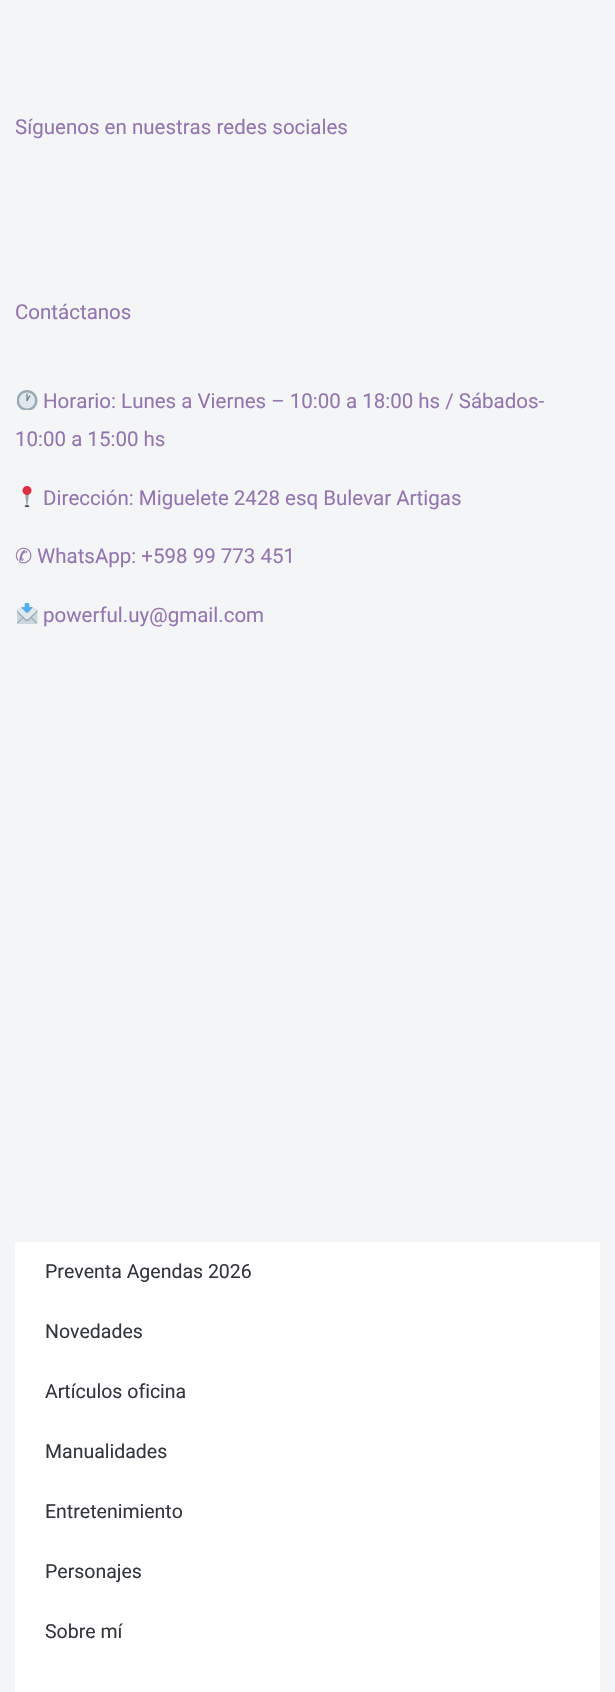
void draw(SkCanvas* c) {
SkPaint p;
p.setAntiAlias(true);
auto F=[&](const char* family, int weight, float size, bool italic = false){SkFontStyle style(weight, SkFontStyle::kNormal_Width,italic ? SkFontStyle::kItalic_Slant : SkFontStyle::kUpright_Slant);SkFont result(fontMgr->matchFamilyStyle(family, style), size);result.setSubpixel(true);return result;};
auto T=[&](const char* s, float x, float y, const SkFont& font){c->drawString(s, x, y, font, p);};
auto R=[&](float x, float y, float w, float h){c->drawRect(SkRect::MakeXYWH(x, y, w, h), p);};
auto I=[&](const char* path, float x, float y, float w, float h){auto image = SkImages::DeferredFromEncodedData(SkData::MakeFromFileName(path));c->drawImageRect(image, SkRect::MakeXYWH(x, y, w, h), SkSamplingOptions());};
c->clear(0xfff4f5f6);
auto f1 = F("Roboto",400,20.5);
p.setColor(0xff9475b1);
T("Síguenos en nuestras redes sociales",15,134,f1);
T("Contáctanos",15,319,f1);
I("1.png",17,390,21,20);
T("Horario: Lunes a Viernes – 10:00 a 18:00 hs / Sábados-",43,408,f1);
T("10:00 a 15:00 hs",15,446,f1);
I("2.png",22,486,10,21);
T("Dirección: Miguelete 2428 esq Bulevar Artigas",43,505,f1);
auto f2 = F("DejaVu Sans",400,20.5);
T("✆",15,563,f2);
T("WhatsApp: +598 99 773 451",37,563,f1);
I("3.png",17,603,21,21);
T("powerful.uy@gmail.com",43,622,f1);
p.setColor(0xffffffff);
R(15,1242,585,450);
auto f3 = F("Roboto",400,19.5);
p.setColor(0xff33373d);
T("Preventa Agendas 2026",45,1278,f3);
T("Novedades",45,1338,f3);
T("Artículos oficina",45,1398,f3);
T("Manualidades",45,1458,f3);
T("Entretenimiento",45,1518,f3);
T("Personajes",45,1578,f3);
T("Sobre mí",45,1638,f3);
}
